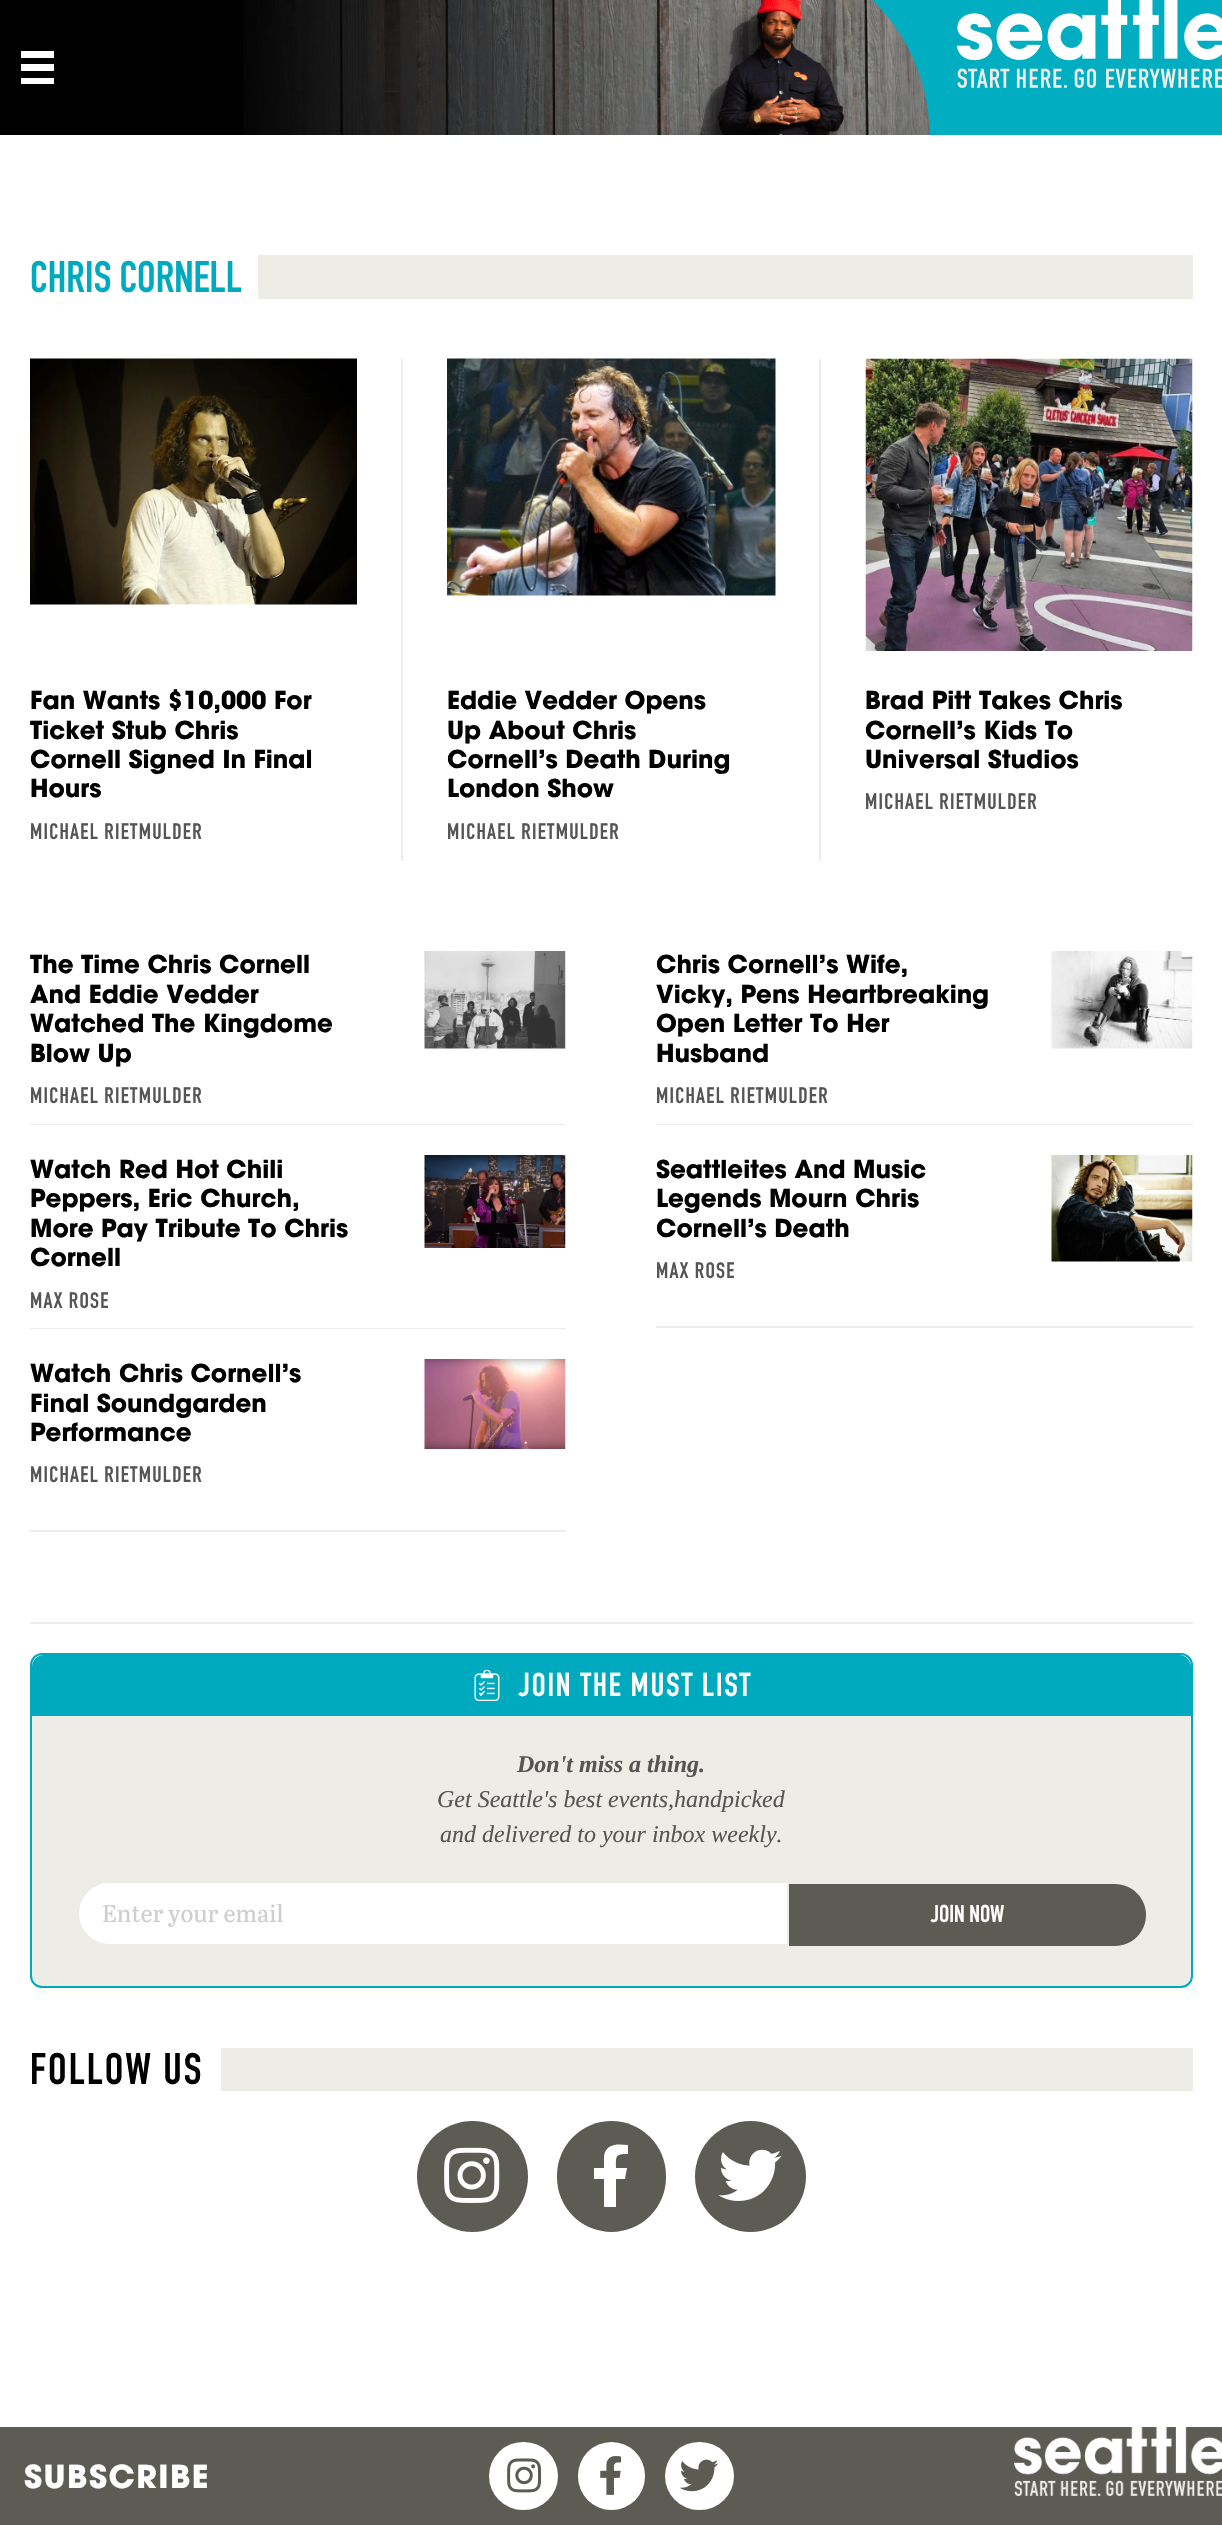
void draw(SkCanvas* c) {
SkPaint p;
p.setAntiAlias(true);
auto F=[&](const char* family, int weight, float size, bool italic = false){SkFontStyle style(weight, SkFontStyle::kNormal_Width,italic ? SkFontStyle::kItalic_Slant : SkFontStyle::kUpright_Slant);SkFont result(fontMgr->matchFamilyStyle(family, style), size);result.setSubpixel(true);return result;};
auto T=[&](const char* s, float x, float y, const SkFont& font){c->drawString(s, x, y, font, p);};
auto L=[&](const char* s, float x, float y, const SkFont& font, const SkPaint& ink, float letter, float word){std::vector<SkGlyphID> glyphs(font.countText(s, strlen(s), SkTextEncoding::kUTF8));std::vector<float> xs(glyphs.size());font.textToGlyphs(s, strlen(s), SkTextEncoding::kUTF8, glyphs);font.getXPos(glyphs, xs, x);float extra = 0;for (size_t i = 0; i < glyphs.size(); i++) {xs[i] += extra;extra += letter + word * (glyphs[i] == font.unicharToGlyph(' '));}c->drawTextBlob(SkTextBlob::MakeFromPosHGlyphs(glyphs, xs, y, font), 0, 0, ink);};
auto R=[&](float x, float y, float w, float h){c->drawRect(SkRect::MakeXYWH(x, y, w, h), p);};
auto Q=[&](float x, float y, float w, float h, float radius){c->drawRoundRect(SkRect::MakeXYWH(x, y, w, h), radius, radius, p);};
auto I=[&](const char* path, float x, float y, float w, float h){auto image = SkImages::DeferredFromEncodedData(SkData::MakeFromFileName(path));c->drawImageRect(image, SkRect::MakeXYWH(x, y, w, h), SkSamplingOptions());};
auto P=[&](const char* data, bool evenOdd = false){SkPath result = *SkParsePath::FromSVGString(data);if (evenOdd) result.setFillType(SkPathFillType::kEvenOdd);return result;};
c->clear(0xffffffff);
p.setColor(0xff000000);
R(0,0,243,135);
I("1.png",243,0,687,135);
p.setColor(0xffffffff);
R(21,51,33,7);
R(21,64,33,7);
R(21,78,33,6);
I("2.png",872,0,350,135);
auto f1 = F("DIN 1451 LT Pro",400,43.5);
p.setColor(0xff00aabe);
T("CHRIS CORNELL",30,292,f1);
p.setColor(0xffedece6);
R(258,255,935,44);
I("3.png",30,358,327,247);
auto f2 = F("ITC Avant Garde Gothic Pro",700,24.5);
p.setColor(0xff000000);
T("Fan Wants $10,000 For",30,709,f2);
T("Ticket Stub Chris",30,739,f2);
T("Cornell Signed In Final",30,768,f2);
T("Hours",30,797,f2);
auto f3 = F("DIN 1451 LT Pro",400,22);
p.setColor(0xff555555);
L("MICHAEL RIETMULDER",30,839,f3,p,1.25,0);
p.setColor(0xffedece6);
R(401,359,2,502);
I("4.png",447,358,329,238);
p.setColor(0xff000000);
T("Eddie Vedder Opens",447,709,f2);
T("Up About Chris",447,739,f2);
T("Cornell’s Death During",447,768,f2);
T("London Show",447,797,f2);
p.setColor(0xff555555);
L("MICHAEL RIETMULDER",447,839,f3,p,1.25,0);
p.setColor(0xffedece6);
R(819,359,2,502);
I("5.png",865,358,328,293);
p.setColor(0xff000000);
T("Brad Pitt Takes Chris",865,709,f2);
T("Cornell’s Kids To",865,739,f2);
T("Universal Studios",865,768,f2);
p.setColor(0xff555555);
L("MICHAEL RIETMULDER",865,809,f3,p,1.25,0);
c->save();
c->clipRect(SkRect::MakeXYWH(30,951,536,174));
p.setColor(0xffedece6);
c->drawPath(P("M-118 802h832v472h-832zm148 118h536c8 0 14 6 14 14v174c0 9-6 16-14 16h-536c-8 0-15-7-15-16v-174c0-8 7-14 15-14z",true),p);
c->restore();
p.setColor(0xff000000);
T("The Time Chris Cornell",30,973,f2);
T("And Eddie Vedder",30,1003,f2);
T("Watched The Kingdome",30,1032,f2);
T("Blow Up",30,1062,f2);
p.setColor(0xff555555);
L("MICHAEL RIETMULDER",30,1103,f3,p,1.25,0);
I("6.png",424,951,142,98);
c->save();
c->clipRect(SkRect::MakeXYWH(656,951,537,174));
p.setColor(0xffedece6);
c->drawPath(P("M507 802h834v472h-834zm149 118h536c9 0 16 6 16 14v174c0 9-7 16-16 16h-536c-9 0-16-7-16-16v-174c0-8 7-14 16-14z",true),p);
c->restore();
p.setColor(0xff000000);
T("Chris Cornell’s Wife,",656,973,f2);
T("Vicky, Pens Heartbreaking",656,1003,f2);
T("Open Letter To Her",656,1032,f2);
T("Husband",656,1062,f2);
p.setColor(0xff555555);
L("MICHAEL RIETMULDER",656,1103,f3,p,1.25,0);
I("7.png",1051,951,142,98);
c->save();
c->clipRect(SkRect::MakeXYWH(30,1155,536,174));
p.setColor(0xffedece6);
c->drawPath(P("M-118 1006h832v472h-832zm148 118h536c8 0 14 6 14 14v174c0 9-6 16-14 16h-536c-8 0-15-7-15-16v-174c0-8 7-14 15-14z",true),p);
c->restore();
p.setColor(0xff000000);
T("Watch Red Hot Chili",30,1178,f2);
T("Peppers, Eric Church,",30,1207,f2);
T("More Pay Tribute To Chris",30,1237,f2);
T("Cornell",30,1266,f2);
p.setColor(0xff555555);
L("MAX ROSE",30,1308,f3,p,1.25,0);
I("8.png",424,1155,142,93);
c->save();
c->clipRect(SkRect::MakeXYWH(656,1155,537,173));
p.setColor(0xffedece6);
c->drawPath(P("M507 1006h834v470h-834zm149 118h536c9 0 16 6 16 14v173c0 8-7 15-16 15h-536c-9 0-16-7-16-15v-173c0-8 7-14 16-14z",true),p);
c->restore();
p.setColor(0xff000000);
T("Seattleites And Music",656,1178,f2);
T("Legends Mourn Chris",656,1207,f2);
T("Cornell’s Death",656,1237,f2);
p.setColor(0xff555555);
L("MAX ROSE",656,1278,f3,p,1.25,0);
I("9.png",1051,1155,142,107);
c->save();
c->clipRect(SkRect::MakeXYWH(30,1359,536,173));
p.setColor(0xffedece6);
c->drawPath(P("M-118 1210h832v470h-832zm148 118h536c8 0 14 6 14 14v173c0 8-6 15-14 15h-536c-8 0-15-7-15-15v-173c0-8 7-14 15-14z",true),p);
c->restore();
p.setColor(0xff000000);
T("Watch Chris Cornell’s",30,1382,f2);
T("Final Soundgarden",30,1412,f2);
T("Performance",30,1441,f2);
p.setColor(0xff555555);
L("MICHAEL RIETMULDER",30,1482,f3,p,1.25,0);
I("10.png",424,1359,142,90);
p.setColor(0xffedece6);
R(30,1622,1163,2);
c->drawRoundRect(SkRect::MakeXYWH(31,1654,1161,333),11,11,p);
p.setStroke(true);
p.setStrokeWidth(2);
p.setColor(0xff00aabe);
c->drawRoundRect(SkRect::MakeXYWH(31,1654,1161,333),11,11,p);
p.setStroke(false);
c->drawPath(P("M44 1655h1135c6.5 0 12 5.5 12 12v49h-1159v-49c0-6.5 5.5-12 12-12z"),p);
I("11.png",474,1670,26,31);
auto f4 = F("DIN 1451 LT Pro",400,32.5);
p.setColor(0xffffffff);
L("JOIN THE MUST LIST",519,1696,f4,p,1.9,0);
auto f5 = F("Liberation Serif",700,24,true);
p.setColor(0xff555555);
T("Don't miss a thing.",517,1772,f5);
auto f6 = F("Liberation Serif",400,24,true);
T("Get Seattle's best events,handpicked",437,1807,f6);
T("and delivered to your inbox weekly.",440,1842,f6);
p.setColor(0xffffffff);
c->drawPath(P("M109.5 1882h678.5v63h-678.5c-17.5 0-31.5-14-31.5-31.5c0-17.5 14-31.5 31.5-31.5z"),p);
p.setStroke(true);
p.setColor(0xffedece6);
c->drawPath(P("M109.5 1882h678.5v63h-678.5c-17.5 0-31.5-14-31.5-31.5c0-17.5 14-31.5 31.5-31.5z"),p);
auto f7 = F("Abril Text",400,24);
p.setStroke(false);
p.setColor(0xffceced2);
T("Enter your email",102,1922,f7);
p.setColor(0xff5c5b54);
c->drawPath(P("M789 1884h326c17 0 31 14 31 31c0 17-14 31-31 31h-326z"),p);
auto f8 = F("DIN 1451 LT Pro",400,24);
p.setColor(0xffffffff);
T("JOIN NOW",931,1922,f8);
p.setColor(0xff000000);
L("FOLLOW US",30,2084,f1,p,2,0);
p.setColor(0xffedece6);
R(221,2048,972,43);
p.setColor(0xff5c5b54);
c->drawCircle(472.5,2176.5,55.5,p);
I("12.png",444,2147,56,56);
Q(557,2121,109,111,54.5);
p.setColor(0xffffffff);
c->drawPath(P("M625 2179h-9v28h-12v-28h-10v-11h10v-12c2-13 14-12 24-11v9c-13 0-12 2-12 14h11z"),p);
p.setColor(0xff5c5b54);
c->drawCircle(750.5,2176.5,55.5,p);
I("13.png",718,2149,64,52);
R(0,2427,1222,98);
auto f9 = F("ITC Avant Garde Gothic Pro",700,31.5);
p.setColor(0xffffffff);
L("SUBSCRIBE",24,2488,f9,p,1.5,0);
Q(489,2442,69,68,34);
I("14.png",507,2458,35,35);
Q(578,2442,67,68,33.5);
I("15.png",600,2456,22,39);
Q(665,2442,69,68,34);
I("16.png",679,2459,40,33);
I("17.png",1014,2427,208,69);
}
